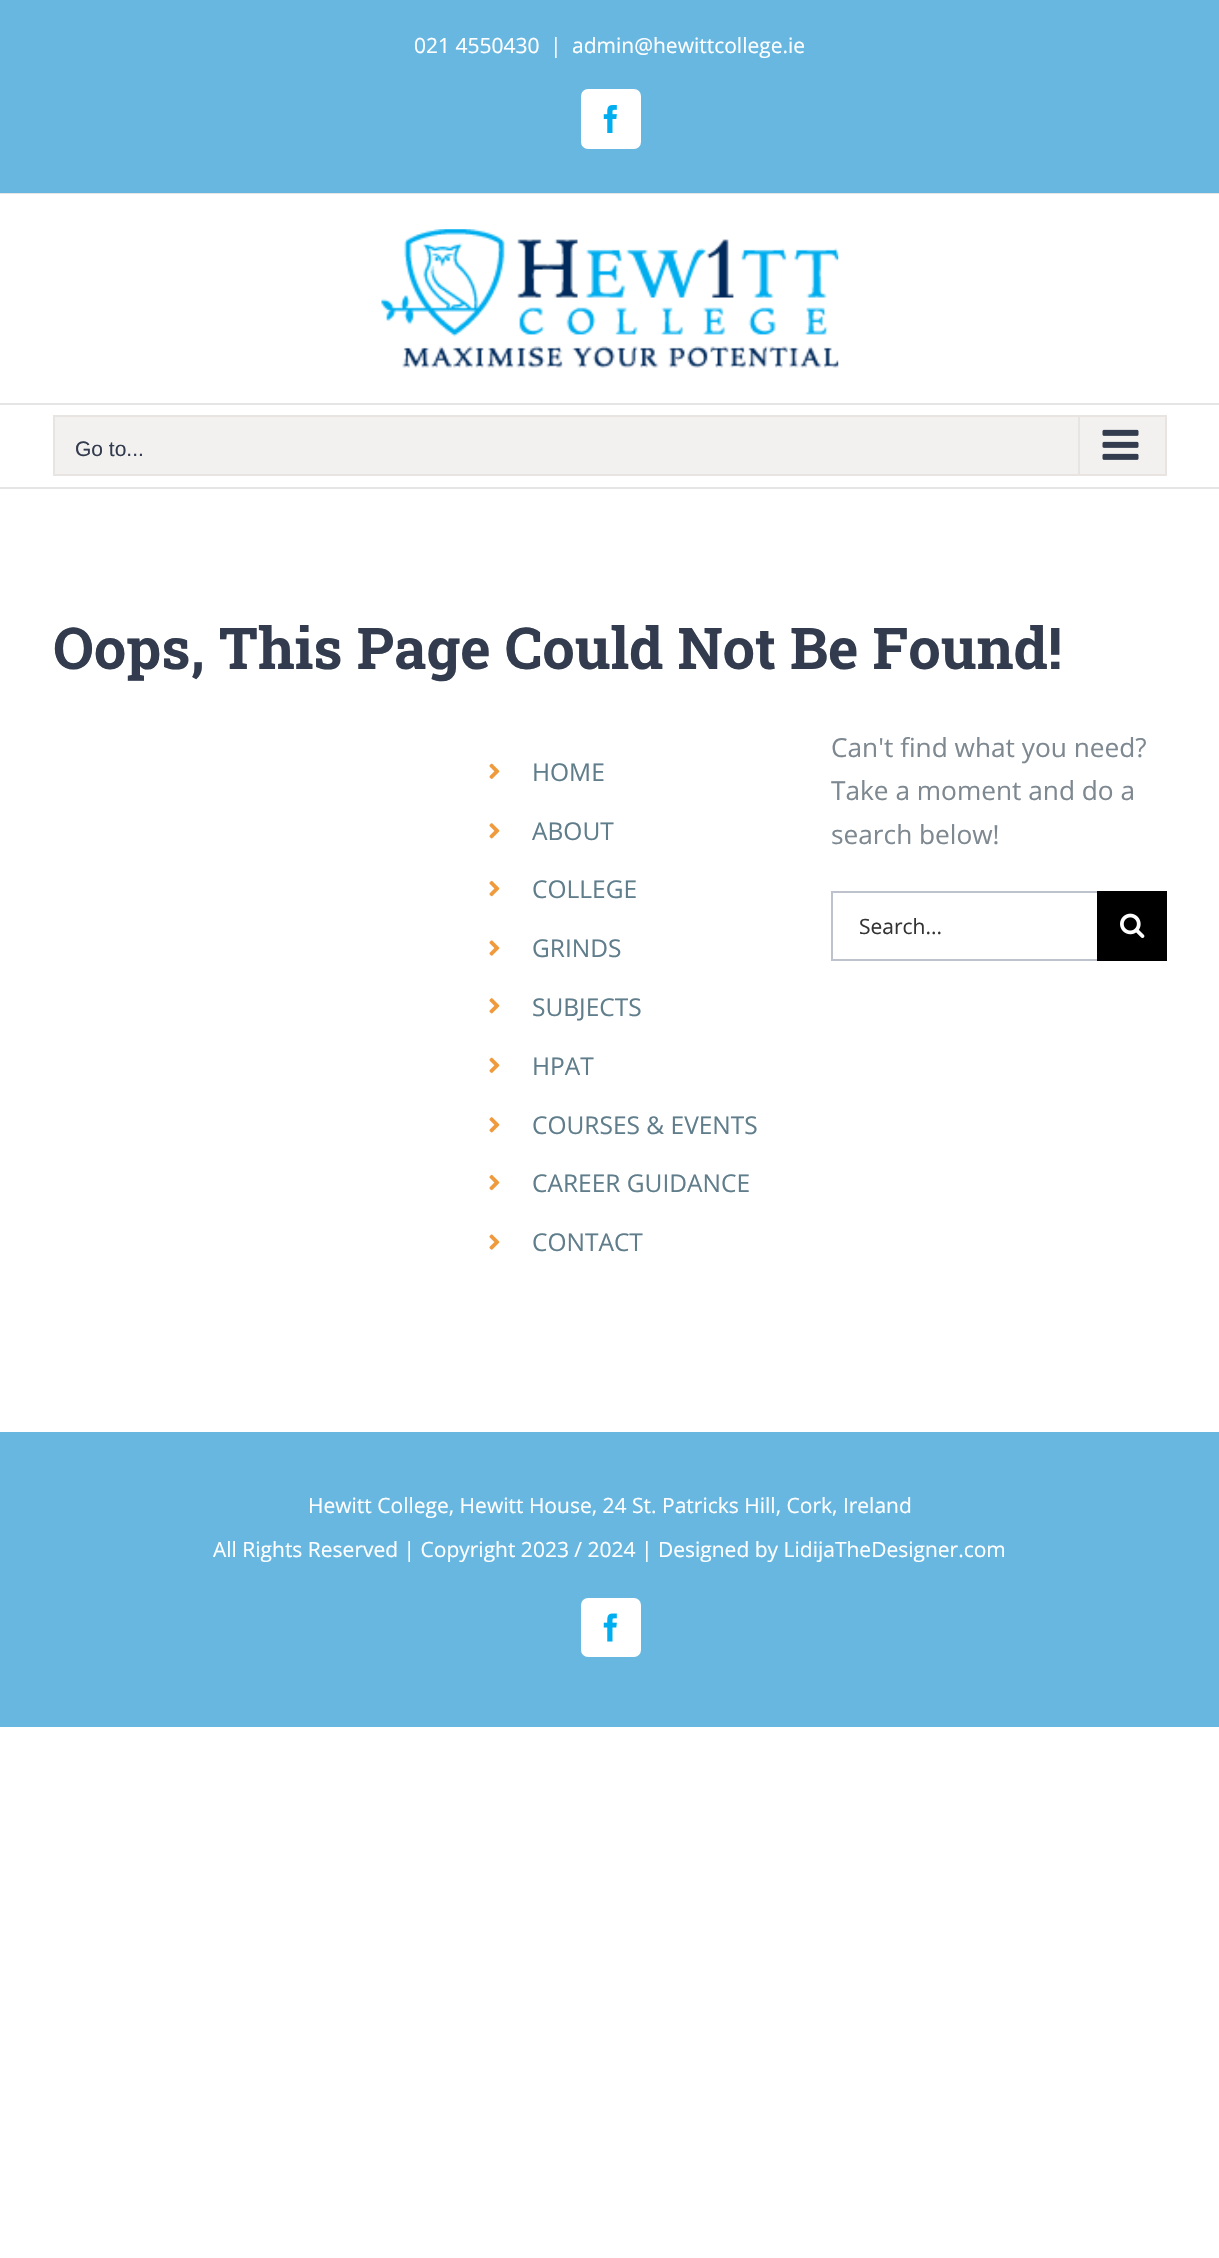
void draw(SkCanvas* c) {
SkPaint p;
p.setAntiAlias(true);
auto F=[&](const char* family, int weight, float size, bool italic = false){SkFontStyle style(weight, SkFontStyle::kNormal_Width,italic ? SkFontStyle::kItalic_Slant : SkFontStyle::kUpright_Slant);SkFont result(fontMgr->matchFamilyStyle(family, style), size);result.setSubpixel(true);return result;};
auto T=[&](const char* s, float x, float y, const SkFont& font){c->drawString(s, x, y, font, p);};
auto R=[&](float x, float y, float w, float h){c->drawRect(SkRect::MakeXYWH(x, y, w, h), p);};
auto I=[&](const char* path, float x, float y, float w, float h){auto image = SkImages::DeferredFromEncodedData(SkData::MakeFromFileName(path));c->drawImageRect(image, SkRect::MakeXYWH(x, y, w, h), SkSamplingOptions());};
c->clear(0xffffffff);
p.setColor(0xff67b7e1);
R(0,0,1219,193);
p.setColor(0xffe5e5e5);
R(0,193,1219,1);
auto f1 = F("Open Sans",400,21);
p.setColor(0xffffffff);
T("021 4550430",414,53,f1);
T("|",550,53,f1);
T("admin@hewittcollege.ie",572,53,f1);
c->drawRoundRect(SkRect::MakeXYWH(582,90,58,58),6,6,p);
p.setStroke(true);
p.setStrokeWidth(2);
c->drawRoundRect(SkRect::MakeXYWH(582,90,58,58),6,6,p);
I("1.png",603,105,14,28);
p.setStroke(false);
p.setColor(0xffe5e5e5);
R(0,403,1219,2);
I("2.png",381,229,458,139);
R(0,487,1219,2);
p.setColor(0xfff2f1f0);
c->drawRect(SkRect::MakeXYWH(54,416,1112,59),p);
p.setStroke(true);
p.setColor(0xffe7e4e2);
c->drawRect(SkRect::MakeXYWH(54,416,1112,59),p);
auto f2 = F("Liberation Sans",400,21);
p.setStroke(false);
p.setColor(0xff333c4e);
T("Go to...",75,456,f2);
p.setColor(0xffe7e4e2);
R(1078,417,2,57);
I("3.png",1102,429,37,31);
auto f3 = F("Roboto Slab",700,57.75);
p.setColor(0xff333c4e);
T("Oops, This Page Could Not Be Found!",53,669,f3);
I("4.png",489,763,11,16);
auto f4 = F("Open Sans",400,24.5);
p.setColor(0xff607d8b);
T("HOME",532,781,f4);
I("5.png",489,823,11,16);
T("ABOUT",532,840,f4);
I("6.png",489,880,11,17);
T("COLLEGE",532,898,f4);
I("7.png",489,940,11,16);
T("GRINDS",532,957,f4);
I("5.png",489,998,11,16);
T("SUBJECTS",532,1016,f4);
I("4.png",489,1057,11,16);
T("HPAT",532,1075,f4);
I("5.png",489,1117,11,16);
T("COURSES & EVENTS",532,1134,f4);
I("6.png",489,1174,11,17);
T("CAREER GUIDANCE",532,1192,f4);
I("7.png",489,1234,11,16);
T("CONTACT",532,1251,f4);
auto f5 = F("Open Sans",400,26.25);
p.setColor(0xff7e8890);
T("Can't find what you need?",831,757,f5);
T("Take a moment and do a",831,800,f5);
T("search below!",831,844,f5);
p.setColor(0xffbec2cc);
R(831,891,266,2);
R(831,959,266,2);
R(831,891,2,70);
p.setColor(0xff333333);
T("Search...",859,934,f1);
p.setColor(0xff000000);
R(1097,891,70,70);
I("8.png",1120,913,25,25);
p.setColor(0xff67b7e1);
R(0,1432,1219,295);
p.setColor(0xffffffff);
T("Hewitt College, Hewitt House, 24 St. Patricks Hill, Cork, Ireland",308,1513,f1);
T("All Rights Reserved | Copyright 2023 / 2024 | Designed by LidijaTheDesigner.com",213,1557,f1);
c->drawRoundRect(SkRect::MakeXYWH(582,1599,58,57),6,6,p);
p.setStroke(true);
c->drawRoundRect(SkRect::MakeXYWH(582,1599,58,57),6,6,p);
I("9.png",603,1613,14,29);
}
